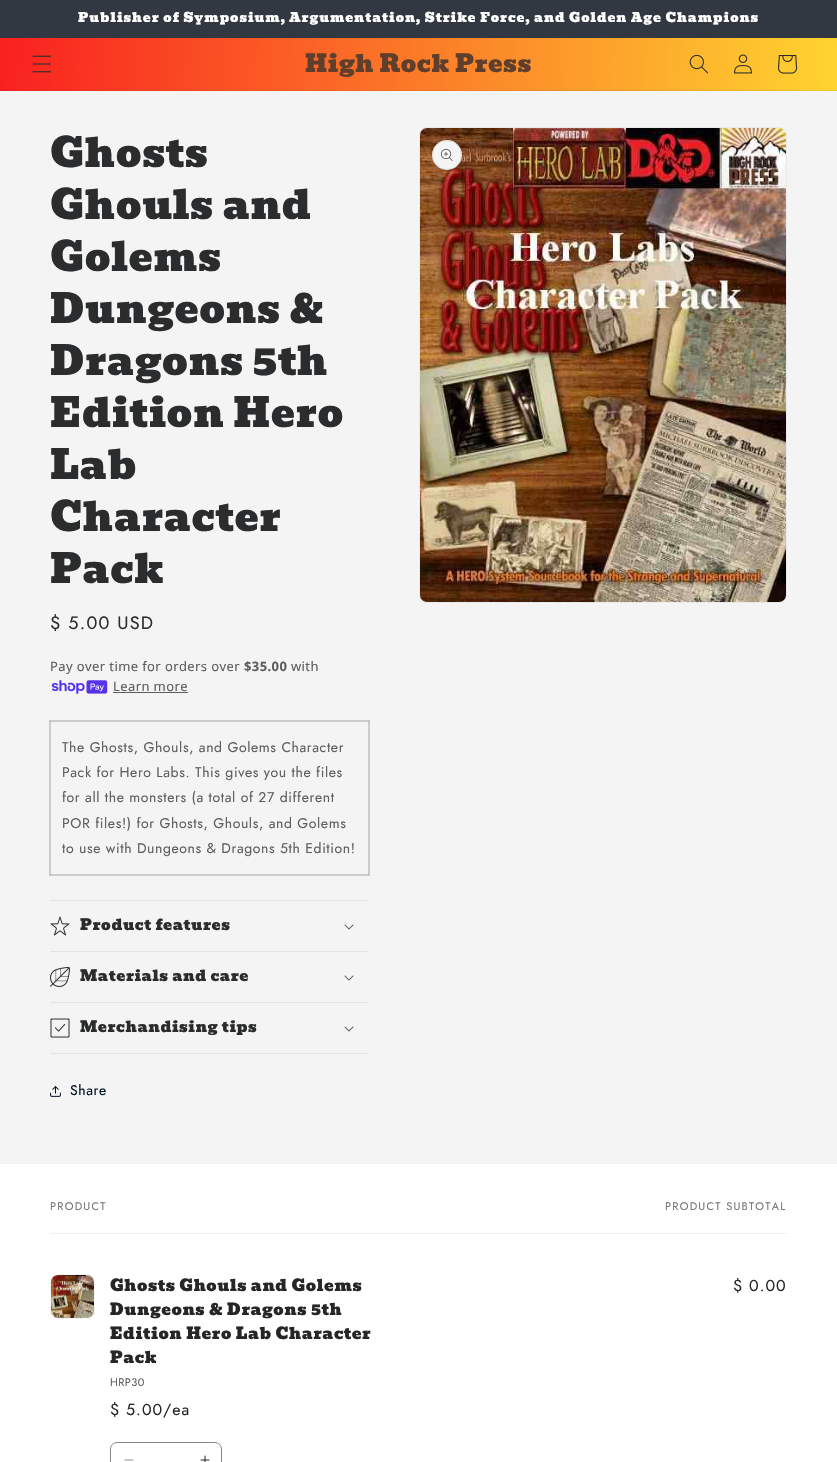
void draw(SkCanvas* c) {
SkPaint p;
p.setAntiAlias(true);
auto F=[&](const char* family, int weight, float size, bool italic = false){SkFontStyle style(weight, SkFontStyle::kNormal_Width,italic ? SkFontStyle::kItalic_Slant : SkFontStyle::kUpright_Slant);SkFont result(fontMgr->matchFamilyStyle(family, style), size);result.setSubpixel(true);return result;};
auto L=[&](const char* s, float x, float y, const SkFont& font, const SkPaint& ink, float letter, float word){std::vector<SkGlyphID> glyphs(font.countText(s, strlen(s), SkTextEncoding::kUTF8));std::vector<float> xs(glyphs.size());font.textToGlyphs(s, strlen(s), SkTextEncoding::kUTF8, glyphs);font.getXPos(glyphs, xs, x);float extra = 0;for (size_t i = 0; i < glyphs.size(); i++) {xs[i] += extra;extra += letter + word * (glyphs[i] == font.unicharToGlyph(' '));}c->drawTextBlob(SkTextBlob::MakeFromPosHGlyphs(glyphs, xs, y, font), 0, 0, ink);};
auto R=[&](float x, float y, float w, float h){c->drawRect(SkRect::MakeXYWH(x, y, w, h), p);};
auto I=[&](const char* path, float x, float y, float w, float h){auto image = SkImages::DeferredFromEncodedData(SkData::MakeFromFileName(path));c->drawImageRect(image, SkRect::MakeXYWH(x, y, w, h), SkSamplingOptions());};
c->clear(0xfff4f4f4);
p.setColor(0xffcccccc);
R(50,721,1,154);
R(50,874,319,1);
p.setColor(0xffacacac);
R(50,874,1,1);
p.setColor(0xffcccccc);
R(368,721,1,154);
p.setColor(0xffacacac);
R(368,874,1,1);
p.setColor(0xff323841);
R(0,0,837,38);
auto f1 = F("Bevan",400,13);
p.setColor(0xffffffff);
L("Publisher of Symposium, Argumentation, Strike Force, and Golden Age Champions",78,22,f1,p,1,0);
{
const SkColor colors[] = {0xffffe431,0xfff92020};
const float stops[] = {0,1};
const SkPoint ends[] = {{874,755}, {-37,707}};
p.setShader(SkGradientShader::MakeLinear(ends, colors, stops, 2, SkTileMode::kClamp));
p.setAlpha(255);
}
R(0,38,837,52);
{
const SkColor colors[] = {0xffeed531,0xffe92121};
const float stops[] = {0,1};
const SkPoint ends[] = {{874,755}, {-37,707}};
p.setShader(SkGradientShader::MakeLinear(ends, colors, stops, 2, SkTileMode::kClamp));
p.setAlpha(255);
}
R(0,90,837,1);
I("1.png",32,55,20,18);
auto f2 = F("Bevan",400,24);
p.setShader(nullptr);
p.setColor(0xff5f3f2c);
L("High Rock Press",305,72,f2,p,.6,0);
I("2.png",689,54,19,20);
I("3.png",734,54,18,20);
I("4.png",778,55,20,19);
auto f3 = F("Bevan",400,40);
p.setColor(0xff2b2c2d);
L("Ghosts",50,167,f3,p,.6,0);
L("Ghouls and",50,219,f3,p,.6,0);
L("Golems",50,271,f3,p,.6,0);
L("Dungeons &",50,323,f3,p,.6,0);
L("Dragons 5th",50,375,f3,p,.6,0);
L("Edition Hero",50,427,f3,p,.6,0);
L("Lab",50,479,f3,p,.6,0);
L("Character",50,531,f3,p,.6,0);
L("Pack",50,583,f3,p,.6,0);
auto f4 = F("Jost",400,18);
L("$ 5.00 USD",50,629,f4,p,1.25,0);
auto f5 = F("Noto Sans",400,13);
p.setColor(0xff5d5e5f);
L("Pay over time for orders over",50,671,f5,p,.4,0);
auto f6 = F("Noto Sans",700,13);
L("$35.00",244,671,f6,p,.4,0);
L("with",291,671,f5,p,.4,0);
I("5.png",51,680,57,14);
L("Learn more",113,691,f5,p,.4,0);
R(113,692,75,1);
p.setStroke(true);
p.setStrokeWidth(1);
p.setColor(0xffcccccc);
c->drawRect(SkRect::MakeXYWH(49.5,720.5,320,155),p);
p.setStroke(false);
R(50,721,319,1);
p.setColor(0xffacacac);
R(50,721,1,1);
R(368,721,1,1);
auto f7 = F("Jost",400,14);
p.setColor(0xff5d5e5f);
L("The Ghosts, Ghouls, and Golems Character",62,752,f7,p,.6,0);
L("Pack for Hero Labs. This gives you the files",62,777,f7,p,.6,0);
L("for all the monsters (a total of 27 different",62,802,f7,p,.6,0);
L("POR files!) for Ghosts, Ghouls, and Golems",62,828,f7,p,.6,0);
L("to use with Dungeons & Dragons 5th Edition!",62,853,f7,p,.6,0);
p.setColor(0xffe4e4e4);
R(50,900,319,1);
R(50,951,319,1);
I("6.png",50,916,20,20);
auto f8 = F("Bevan",400,15);
p.setColor(0xff2b2c2d);
L("Product features",80,930,f8,p,.6,0);
I("7.png",344,924,10,6);
p.setColor(0xffe4e4e4);
R(50,1002,319,1);
I("8.png",50,967,20,20);
p.setColor(0xff2b2c2d);
L("Materials and care",80,981,f8,p,.6,0);
I("7.png",344,975,10,6);
p.setColor(0xffe4e4e4);
R(50,1053,319,1);
I("9.png",50,1018,20,20);
p.setColor(0xff2b2c2d);
L("Merchandising tips",80,1032,f8,p,.6,0);
I("7.png",344,1026,10,6);
I("10.png",50,1086,11,11);
p.setColor(0xff001128);
L("Share",70,1095,f7,p,.6,0);
p.setStroke(true);
p.setColor(0xffeaeaea);
c->drawRoundRect(SkRect::MakeXYWH(419.5,127.5,367,475),7.5,7.5,p);
I("11.png",420,128,366,474);
p.setStroke(false);
p.setColor(0xfff4f4f4);
c->drawCircle(447,155,15,p);
p.setStroke(true);
p.setColor(0x1a2b2c2d);
c->drawCircle(447,155,14.5,p);
I("12.png",441,149,12,12);
p.setStroke(false);
p.setColor(0xffffffff);
R(0,1164,837,298);
p.setColor(0xffeeeeee);
R(50,1233,737,1);
auto f9 = F("Jost",400,11);
p.setColor(0xff757575);
L("PRODUCT",50,1210,f9,p,1.25,0);
L("PRODUCT SUBTOTAL",665,1210,f9,p,1.25,0);
p.setStroke(true);
p.setColor(0xfff4f4f4);
c->drawRoundRect(SkRect::MakeXYWH(50.5,1274.5,44,44),7.5,7.5,p);
I("13.png",51,1275,43,43);
auto f10 = F("Bevan",400,16);
p.setStroke(false);
p.setColor(0xff262626);
L("Ghosts Ghouls and Golems",110,1291,f10,p,.6,0);
L("Dungeons & Dragons 5th",110,1315,f10,p,.6,0);
L("Edition Hero Lab Character",110,1339,f10,p,.6,0);
L("Pack",110,1363,f10,p,.6,0);
p.setColor(0xff5d5e5f);
L("HRP30",110,1386,f9,p,.4,0);
auto f11 = F("Jost",400,16);
p.setColor(0xff262626);
L("$ 5.00/ea",110,1415,f11,p,1,0);
L("$ 0.00",733,1291,f11,p,1,0);
I("14.png",124,1459,10,2);
I("15.png",200,1455,10,7);
p.setStroke(true);
p.setColor(0xff888888);
c->drawRoundRect(SkRect::MakeXYWH(110.5,1442.5,111,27),6.5,6.5,p);
}
